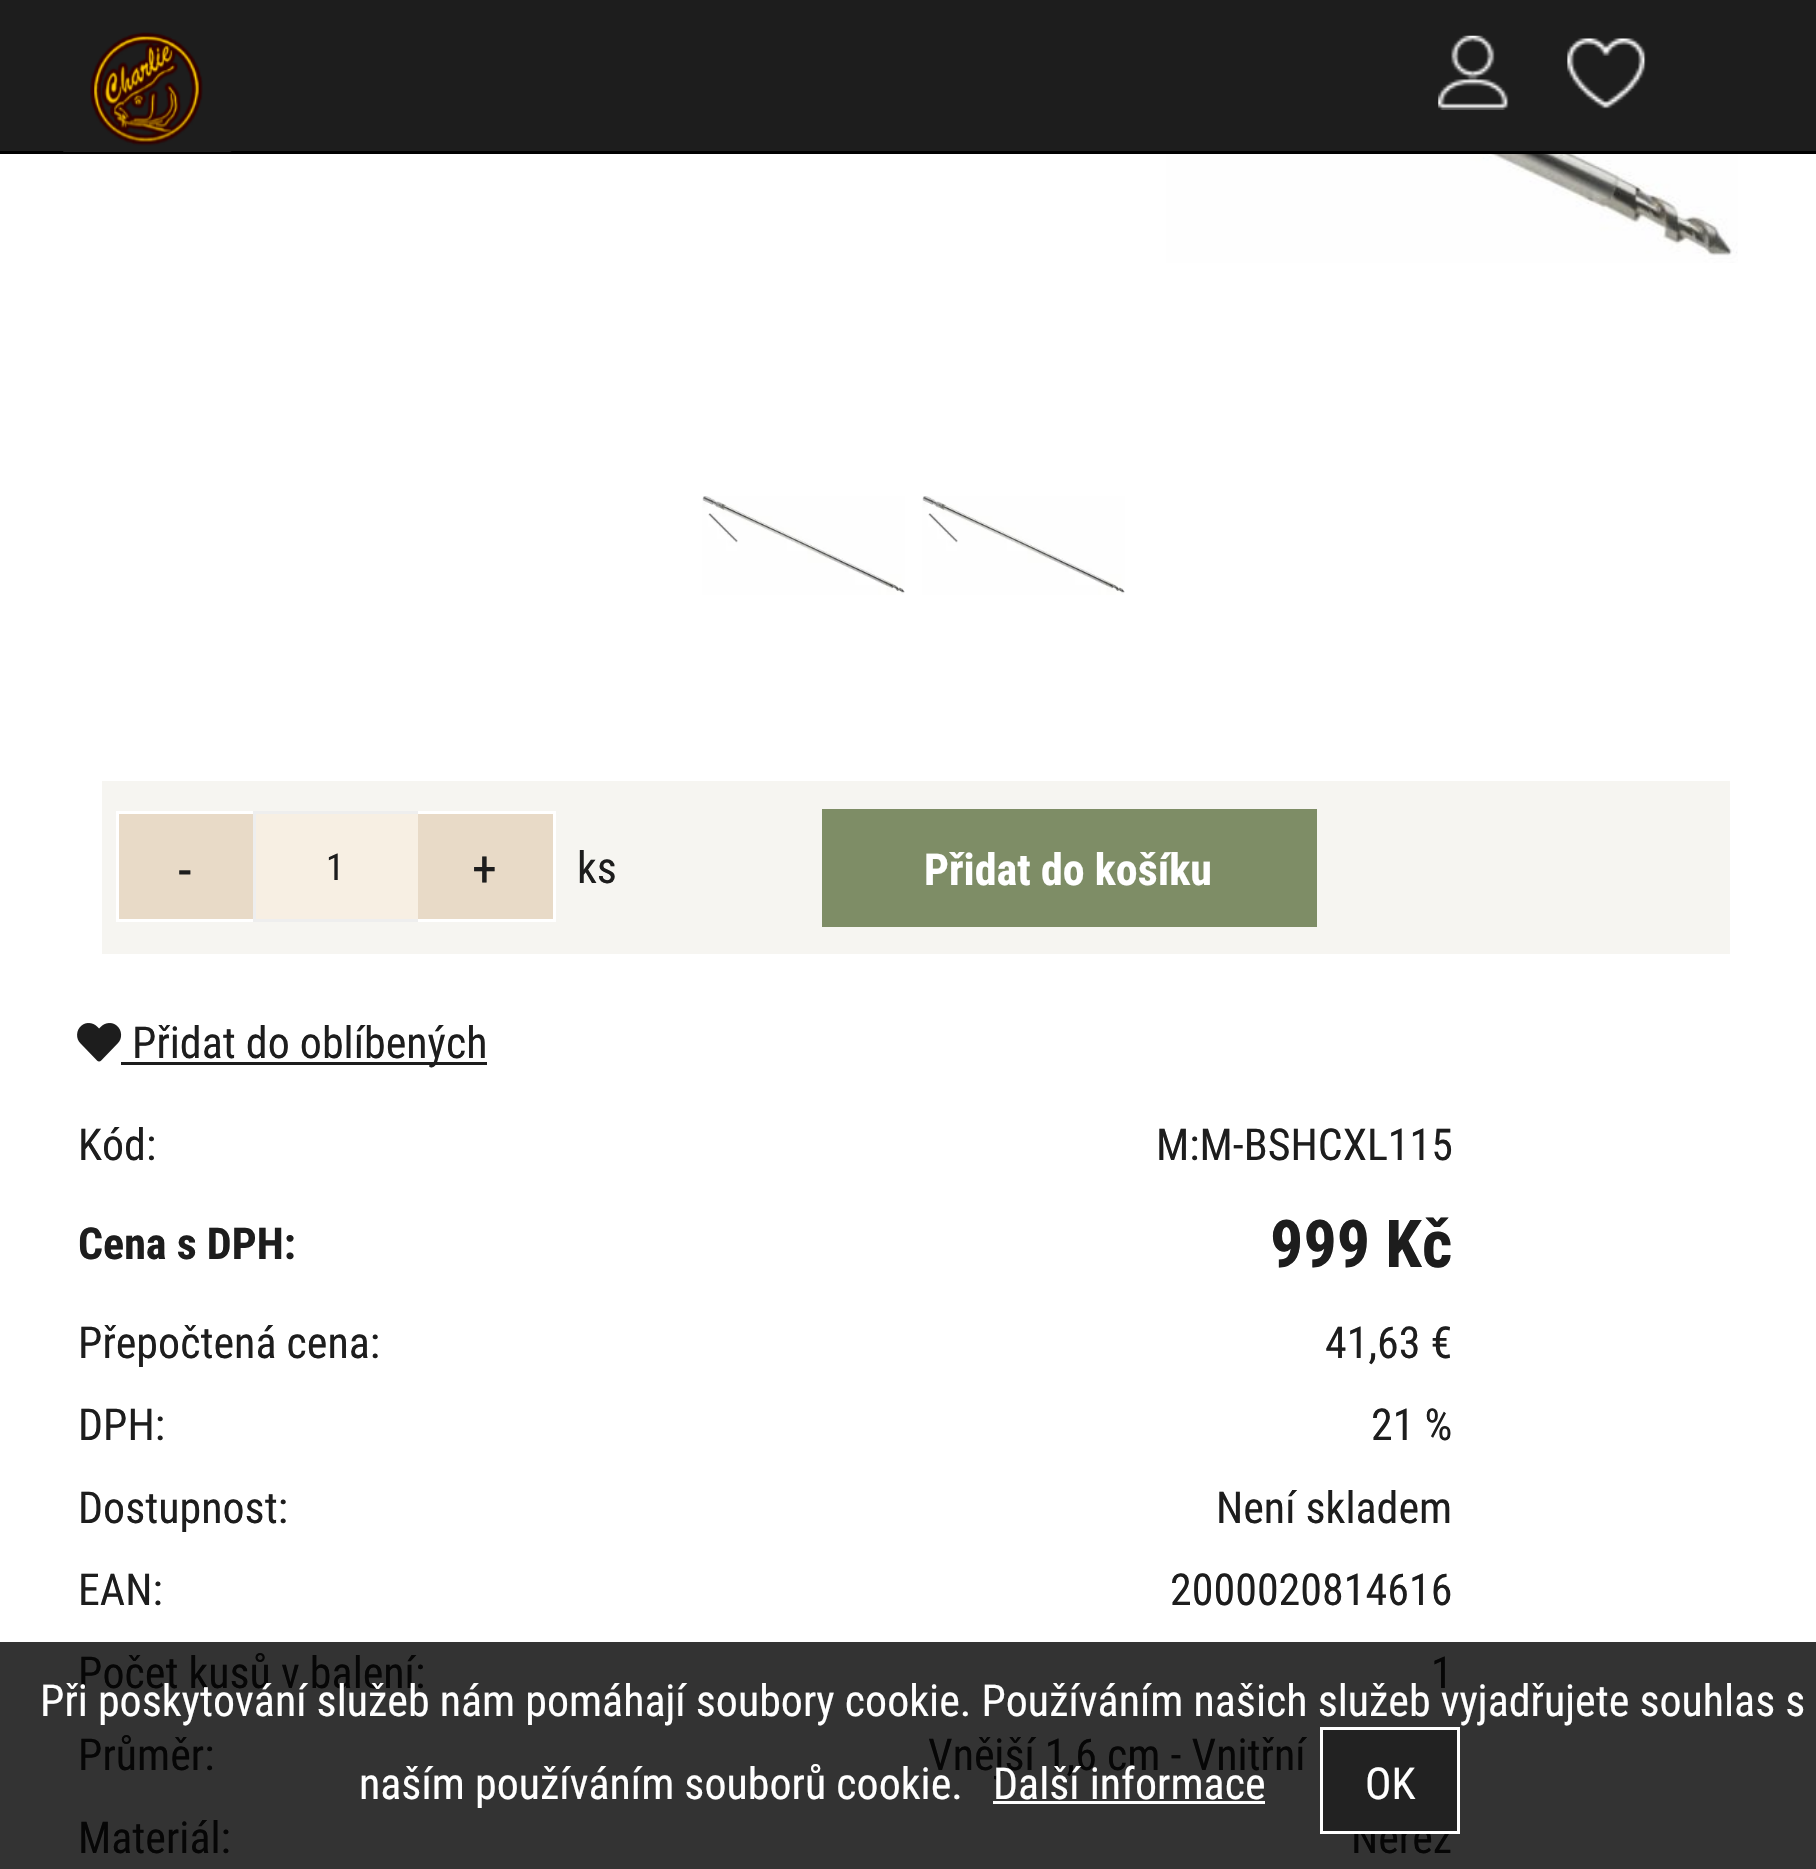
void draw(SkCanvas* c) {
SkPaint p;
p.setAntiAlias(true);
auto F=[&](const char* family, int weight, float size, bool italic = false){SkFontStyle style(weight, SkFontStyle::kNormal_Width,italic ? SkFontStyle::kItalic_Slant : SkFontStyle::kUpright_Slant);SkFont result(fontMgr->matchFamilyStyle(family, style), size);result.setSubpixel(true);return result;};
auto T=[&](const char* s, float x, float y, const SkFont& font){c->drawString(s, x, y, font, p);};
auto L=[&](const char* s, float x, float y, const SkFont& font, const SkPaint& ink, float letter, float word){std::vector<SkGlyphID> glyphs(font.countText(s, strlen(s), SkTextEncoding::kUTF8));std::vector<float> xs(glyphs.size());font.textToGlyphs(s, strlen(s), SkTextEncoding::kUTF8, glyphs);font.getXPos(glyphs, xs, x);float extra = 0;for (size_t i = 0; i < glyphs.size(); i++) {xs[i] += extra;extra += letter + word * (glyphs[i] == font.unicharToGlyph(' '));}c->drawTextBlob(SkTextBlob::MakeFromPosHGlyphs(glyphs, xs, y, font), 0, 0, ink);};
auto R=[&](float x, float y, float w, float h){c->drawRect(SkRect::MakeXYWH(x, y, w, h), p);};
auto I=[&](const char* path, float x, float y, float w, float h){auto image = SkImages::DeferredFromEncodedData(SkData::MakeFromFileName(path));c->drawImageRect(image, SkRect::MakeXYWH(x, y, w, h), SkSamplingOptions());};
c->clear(0xffffffff);
p.setColor(0xff333333);
R(0,1642,1816,227);
p.setColor(0xff1d1d1d);
R(0,0,1816,151);
p.setColor(0xff000000);
R(0,151,1816,3);
I("1.png",63,32,169,120);
I("2.png",1438,35,71,75);
I("3.png",1567,38,79,71);
I("4.png",1166,154,572,109);
I("5.png",702,496,203,99);
I("6.png",922,496,203,99);
p.setColor(0xfff6f5f1);
R(102,781,1628,173);
p.setColor(0xffe8dac7);
R(119,814,134,105);
p.setColor(0xffffffff);
R(116,811,137,3);
R(116,919,137,3);
R(116,811,3,110);
auto f1 = F("Roboto Condensed",400,55);
p.setColor(0xff1d1d1d);
T("-",178,889,f1);
p.setColor(0xfff7efe3);
R(256,814,162,105);
p.setColor(0xffeeeeee);
R(253,811,165,3);
R(253,919,165,3);
R(253,811,3,110);
auto f2 = F("Roboto Condensed",400,37);
p.setColor(0xff1d1d1d);
L("1",326,880,f2,p,3,0);
p.setColor(0xffe8dac7);
R(418,814,135,105);
p.setColor(0xffffffff);
R(418,811,138,3);
R(553,811,3,110);
R(418,919,138,3);
auto f3 = F("Roboto Condensed",400,50);
p.setColor(0xff1d1d1d);
T("+",472,886,f3);
auto f4 = F("Roboto Condensed",400,44);
T("ks",577,883,f4);
p.setColor(0xff7e8d66);
R(822,809,495,118);
auto f5 = F("Roboto Condensed",700,44);
p.setColor(0xffffffff);
T("Přidat do košíku",924,885,f5);
I("7.png",77,1023,45,39);
p.setColor(0xff1d1d1d);
R(121,1062,366,3);
T("Přidat do oblíbených",132,1058,f4);
T("Kód:",78,1160,f4);
T("M:M-BSHCXL115",1156,1160,f4);
T("Cena s DPH:",78,1259,f5);
auto f6 = F("Roboto Condensed",700,66);
T("999 Kč",1270,1267,f6);
T("Přepočtená cena:",78,1358,f4);
T("41,63 €",1325,1358,f4);
T("DPH:",78,1440,f4);
T("21 %",1371,1440,f4);
T("Dostupnost:",78,1523,f4);
T("Není skladem",1216,1523,f4);
T("EAN:",78,1605,f4);
T("2000020814616",1170,1605,f4);
p.setColor(0xff060606);
T("Počet kusů v balení:",78,1688,f4);
T("1",1431,1688,f4);
T("Průměr:",78,1770,f4);
T("Vnější 1,6 cm - Vnitřní",928,1770,f4);
T("Materiál:",78,1853,f4);
T("Nerez",1351,1853,f4);
p.setColor(0xffffffff);
T("Při poskytování služeb nám pomáhají soubory cookie. Používáním našich služeb vyjadřujete souhlas s",40,1716,f4);
T("naším používáním souborů cookie.",359,1799,f4);
T("Další informace",993,1799,f4);
R(993,1801,272,3);
p.setColor(0xff222222);
c->drawRect(SkRect::MakeXYWH(1321.5,1728.5,137,104),p);
p.setStroke(true);
p.setStrokeWidth(3);
p.setColor(0xffffffff);
c->drawRect(SkRect::MakeXYWH(1321.5,1728.5,137,104),p);
p.setStroke(false);
T("OK",1365,1799,f4);
}
